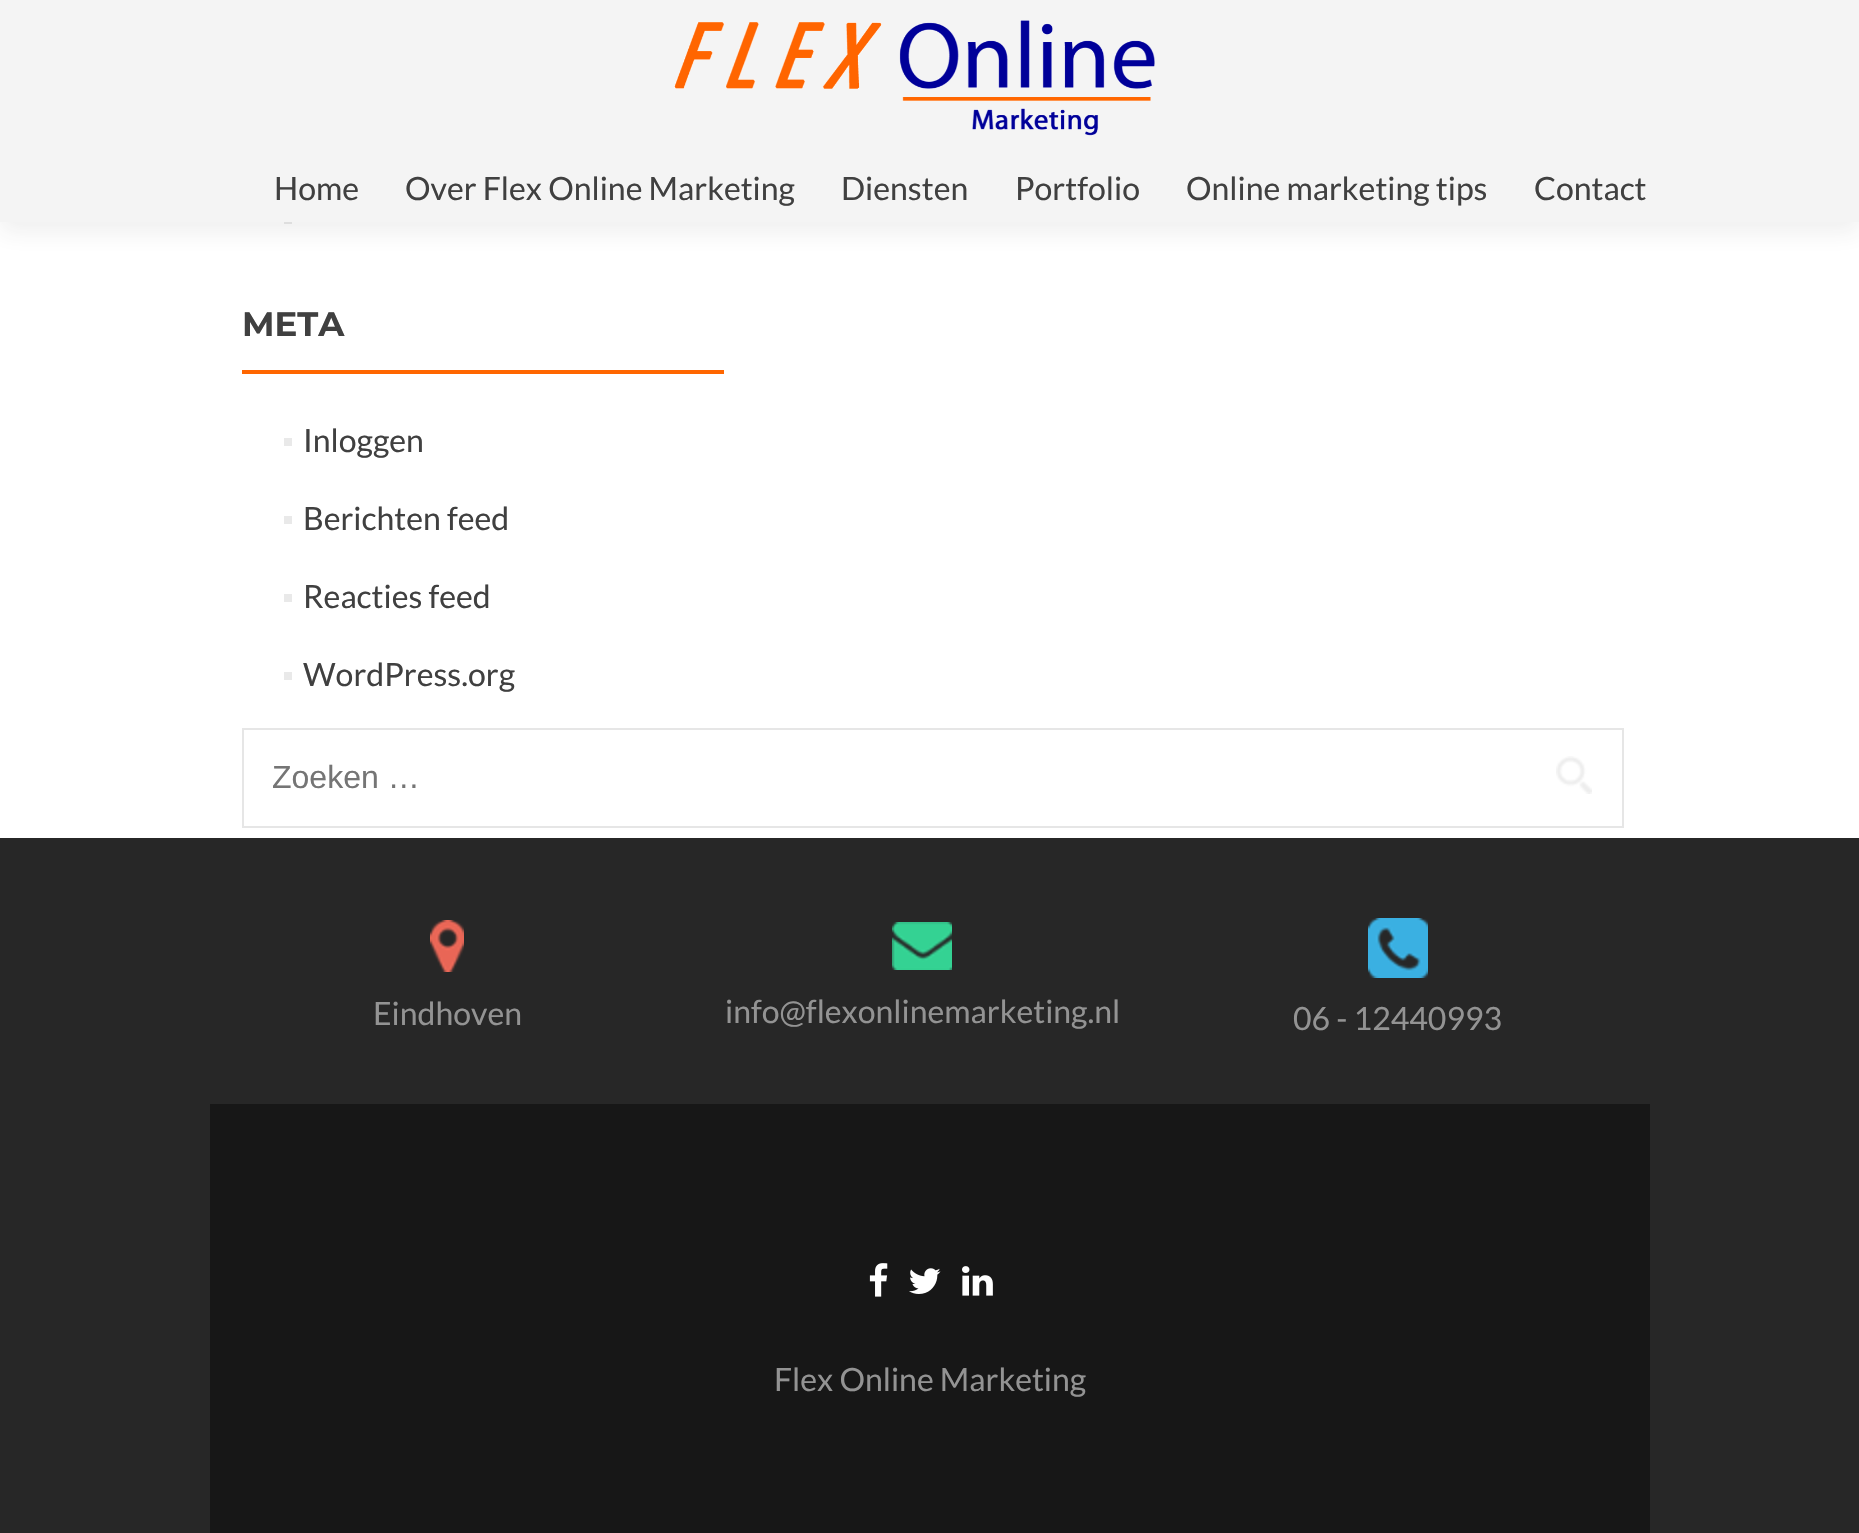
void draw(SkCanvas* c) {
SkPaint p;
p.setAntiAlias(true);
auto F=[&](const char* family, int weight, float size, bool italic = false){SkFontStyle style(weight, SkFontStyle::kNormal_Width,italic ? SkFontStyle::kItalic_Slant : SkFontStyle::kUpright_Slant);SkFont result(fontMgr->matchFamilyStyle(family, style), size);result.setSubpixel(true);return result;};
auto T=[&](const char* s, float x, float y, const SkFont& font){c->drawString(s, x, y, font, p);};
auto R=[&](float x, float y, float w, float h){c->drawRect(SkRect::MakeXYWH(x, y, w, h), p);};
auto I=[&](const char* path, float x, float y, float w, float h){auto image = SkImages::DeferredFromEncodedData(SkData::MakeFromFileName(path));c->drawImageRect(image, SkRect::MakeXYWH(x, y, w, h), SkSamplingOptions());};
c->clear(0xffffffff);
p.setColor(0xffe9e9e9);
R(284,222,8,2);
p.setColor(0x14323232);
p.setMaskFilter(SkMaskFilter::MakeBlur(kNormal_SkBlurStyle, 11));
c->drawRect(SkRect::MakeXYWH(0,10,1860,222),p);
p.setMaskFilter(nullptr);
p.setColor(0xfff4f4f4);
R(0,0,1859,222);
I("1.png",674,20,481,116);
auto f1 = F("Lato",400,32);
p.setColor(0xff404040);
T("Home",274,200,f1);
T("Over Flex Online Marketing",405,200,f1);
T("Diensten",841,200,f1);
T("Portfolio",1015,200,f1);
T("Online marketing tips",1186,200,f1);
T("Contact",1534,200,f1);
auto f2 = F("Montserrat",100,34);
T("META",242,336,f2);
p.setColor(0xffff6600);
R(242,370,482,4);
p.setColor(0xffe9e9e9);
R(284,438,8,8);
p.setColor(0xff404040);
T("Inloggen",303,452,f1);
p.setColor(0xffe9e9e9);
R(284,516,8,8);
p.setColor(0xff404040);
T("Berichten feed",303,530,f1);
p.setColor(0xffe9e9e9);
R(284,594,8,8);
p.setColor(0xff404040);
T("Reacties feed",303,608,f1);
p.setColor(0xffe9e9e9);
R(284,672,8,8);
p.setColor(0xff404040);
T("WordPress.org",303,686,f1);
p.setStroke(true);
p.setStrokeWidth(2);
p.setColor(0xffe6e6e6);
c->drawRect(SkRect::MakeXYWH(243,729,1380,98),p);
auto f3 = F("Liberation Sans",400,32);
p.setStroke(false);
p.setColor(0xff757575);
T("Zoeken …",272,788,f3);
I("2.png",1556,756,36,38);
p.setColor(0xff272727);
R(0,838,1859,695);
I("3.png",430,920,34,52);
p.setColor(0xff939393);
T("Eindhoven",373,1025,f1);
I("4.png",892,922,60,48);
T("info@flexonlinemarketing.nl",725,1023,f1);
I("5.png",1368,918,60,60);
T("06 - 12440993",1293,1030,f1);
p.setColor(0xff171717);
R(210,1104,1440,429);
I("6.png",869,1263,19,34);
I("7.png",909,1268,32,26);
I("8.png",962,1266,31,30);
p.setColor(0xff939393);
T("Flex Online Marketing",774,1391,f1);
}
